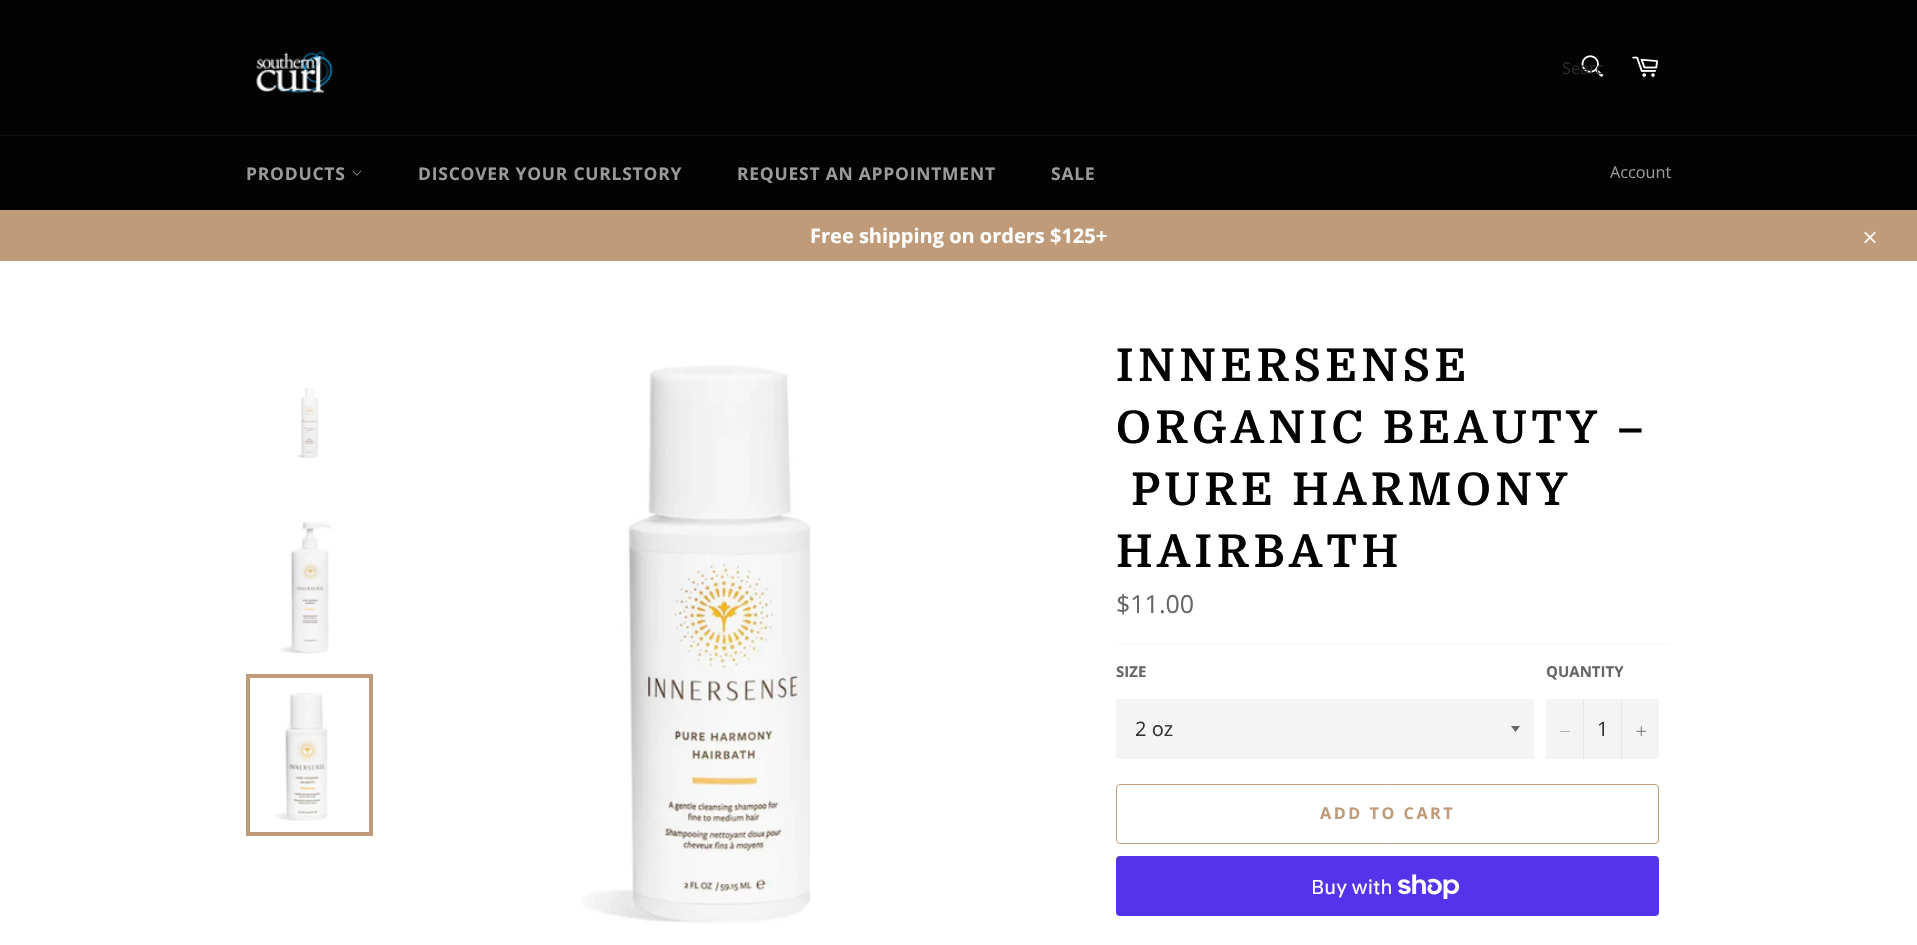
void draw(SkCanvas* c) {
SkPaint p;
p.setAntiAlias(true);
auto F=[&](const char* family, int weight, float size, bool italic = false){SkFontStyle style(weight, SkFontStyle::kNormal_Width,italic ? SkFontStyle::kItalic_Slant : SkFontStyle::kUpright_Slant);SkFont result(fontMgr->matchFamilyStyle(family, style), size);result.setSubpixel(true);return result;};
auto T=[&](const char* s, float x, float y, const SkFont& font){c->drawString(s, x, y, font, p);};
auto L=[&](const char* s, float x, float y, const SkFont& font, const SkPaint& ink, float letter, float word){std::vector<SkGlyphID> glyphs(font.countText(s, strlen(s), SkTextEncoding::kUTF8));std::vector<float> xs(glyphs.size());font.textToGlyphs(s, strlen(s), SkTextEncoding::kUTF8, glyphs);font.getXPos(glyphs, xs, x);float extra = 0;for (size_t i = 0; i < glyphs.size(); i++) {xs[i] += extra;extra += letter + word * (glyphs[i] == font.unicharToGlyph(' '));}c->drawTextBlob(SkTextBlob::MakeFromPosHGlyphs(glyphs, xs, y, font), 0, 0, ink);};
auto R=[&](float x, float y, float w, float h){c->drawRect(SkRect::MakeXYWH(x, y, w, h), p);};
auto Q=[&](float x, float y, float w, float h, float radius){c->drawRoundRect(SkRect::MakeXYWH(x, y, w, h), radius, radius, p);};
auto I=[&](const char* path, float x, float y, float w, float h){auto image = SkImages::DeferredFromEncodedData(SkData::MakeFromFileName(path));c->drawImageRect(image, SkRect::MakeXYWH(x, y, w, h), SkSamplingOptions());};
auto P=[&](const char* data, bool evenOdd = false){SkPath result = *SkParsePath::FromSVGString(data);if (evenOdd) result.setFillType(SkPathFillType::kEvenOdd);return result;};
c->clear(0xff030303);
I("1.png",256,51,77,42);
I("2.png",1581,55,23,22);
c->save();
c->clipRect(SkRect::MakeXYWH(1563,56,40,23));
auto f1 = F("Open Sans",400,16.25);
p.setColor(0xff292929);
T("Searc",1562,74,f1);
c->restore();
I("3.png",1632,56,26,21);
p.setColor(0xff101010);
R(0,135,1917,1);
auto f2 = F("Open Sans",700,17.5);
p.setColor(0xff9a9a9a);
L("PRODUCTS",246,180,f2,p,.75,0);
I("4.png",352,170,10,6);
L("DISCOVER YOUR CURLSTORY",418,180,f2,p,.75,0);
L("REQUEST AN APPOINTMENT",737,180,f2,p,.75,0);
L("SALE",1051,180,f2,p,.75,0);
T("Account",1610,178,f1);
p.setColor(0xffbf9b7a);
R(0,210,1917,51);
auto f3 = F("Open Sans",700,20);
p.setColor(0xffffffff);
T("Free shipping on orders $125+",810,243,f3);
I("5.png",1864,231,12,13);
R(0,261,1917,684);
I("6.png",296,387,23,71);
I("7.png",280,521,52,133);
I("8.png",275,693,53,128);
p.setStroke(true);
p.setStrokeWidth(4);
p.setColor(0xffbf9b7a);
c->drawRect(SkRect::MakeXYWH(248,676,123,158),p);
I("9.png",581,365,230,559);
auto f4 = F("Domine",700,45);
p.setStroke(false);
p.setColor(0xff030303);
L("INNERSENSE",1116,381,f4,p,4.5,0);
L("ORGANIC BEAUTY –",1116,443,f4,p,4.5,0);
L("PURE HARMONY",1131,505,f4,p,4.5,0);
L("HAIRBATH",1116,567,f4,p,4.5,0);
auto f5 = F("Open Sans",400,25);
p.setColor(0xff666666);
T("$11.00",1116,613,f5);
p.setColor(0xfff7f7f7);
R(1116,643,555,1);
auto f6 = F("Open Sans",700,15);
p.setColor(0xff666666);
T("SIZE",1116,677,f6);
p.setColor(0xfff4f4f4);
R(1116,699,418,60);
p.setColor(0xff666666);
c->drawPath(P("M1511 726l4.5 6l4.5-6z"),p);
auto f7 = F("Open Sans",400,20);
p.setColor(0xff333333);
T("2 oz",1135,736,f7);
p.setColor(0xff666666);
T("QUANTITY",1546,677,f6);
p.setColor(0xfff4f4f4);
R(1546,699,113,60);
p.setColor(0xffe7e7e7);
R(1583,699,1,60);
p.setColor(0xff666666);
c->drawPath(P("M1570 731v.5h-10v-.5z",true),p);
p.setColor(0xff333333);
T("1",1597,736,f7);
p.setColor(0xffe7e7e7);
R(1621,699,1,60);
I("10.png",1636,726,10,10);
p.setStroke(true);
p.setStrokeWidth(1);
p.setColor(0xffbf9b7a);
c->drawRoundRect(SkRect::MakeXYWH(1116.5,784.5,542,59),3.5,3.5,p);
auto f8 = F("Open Sans",700,16.25);
p.setStroke(false);
L("ADD TO CART",1320,819,f8,p,2.5,0);
p.setColor(0xff5433eb);
Q(1116,856,543,60,4);
auto f9 = F("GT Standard",400,20);
p.setColor(0xffffffff);
T("Buy with",1311,894,f9);
I("11.png",1398,874,62,25);
}
